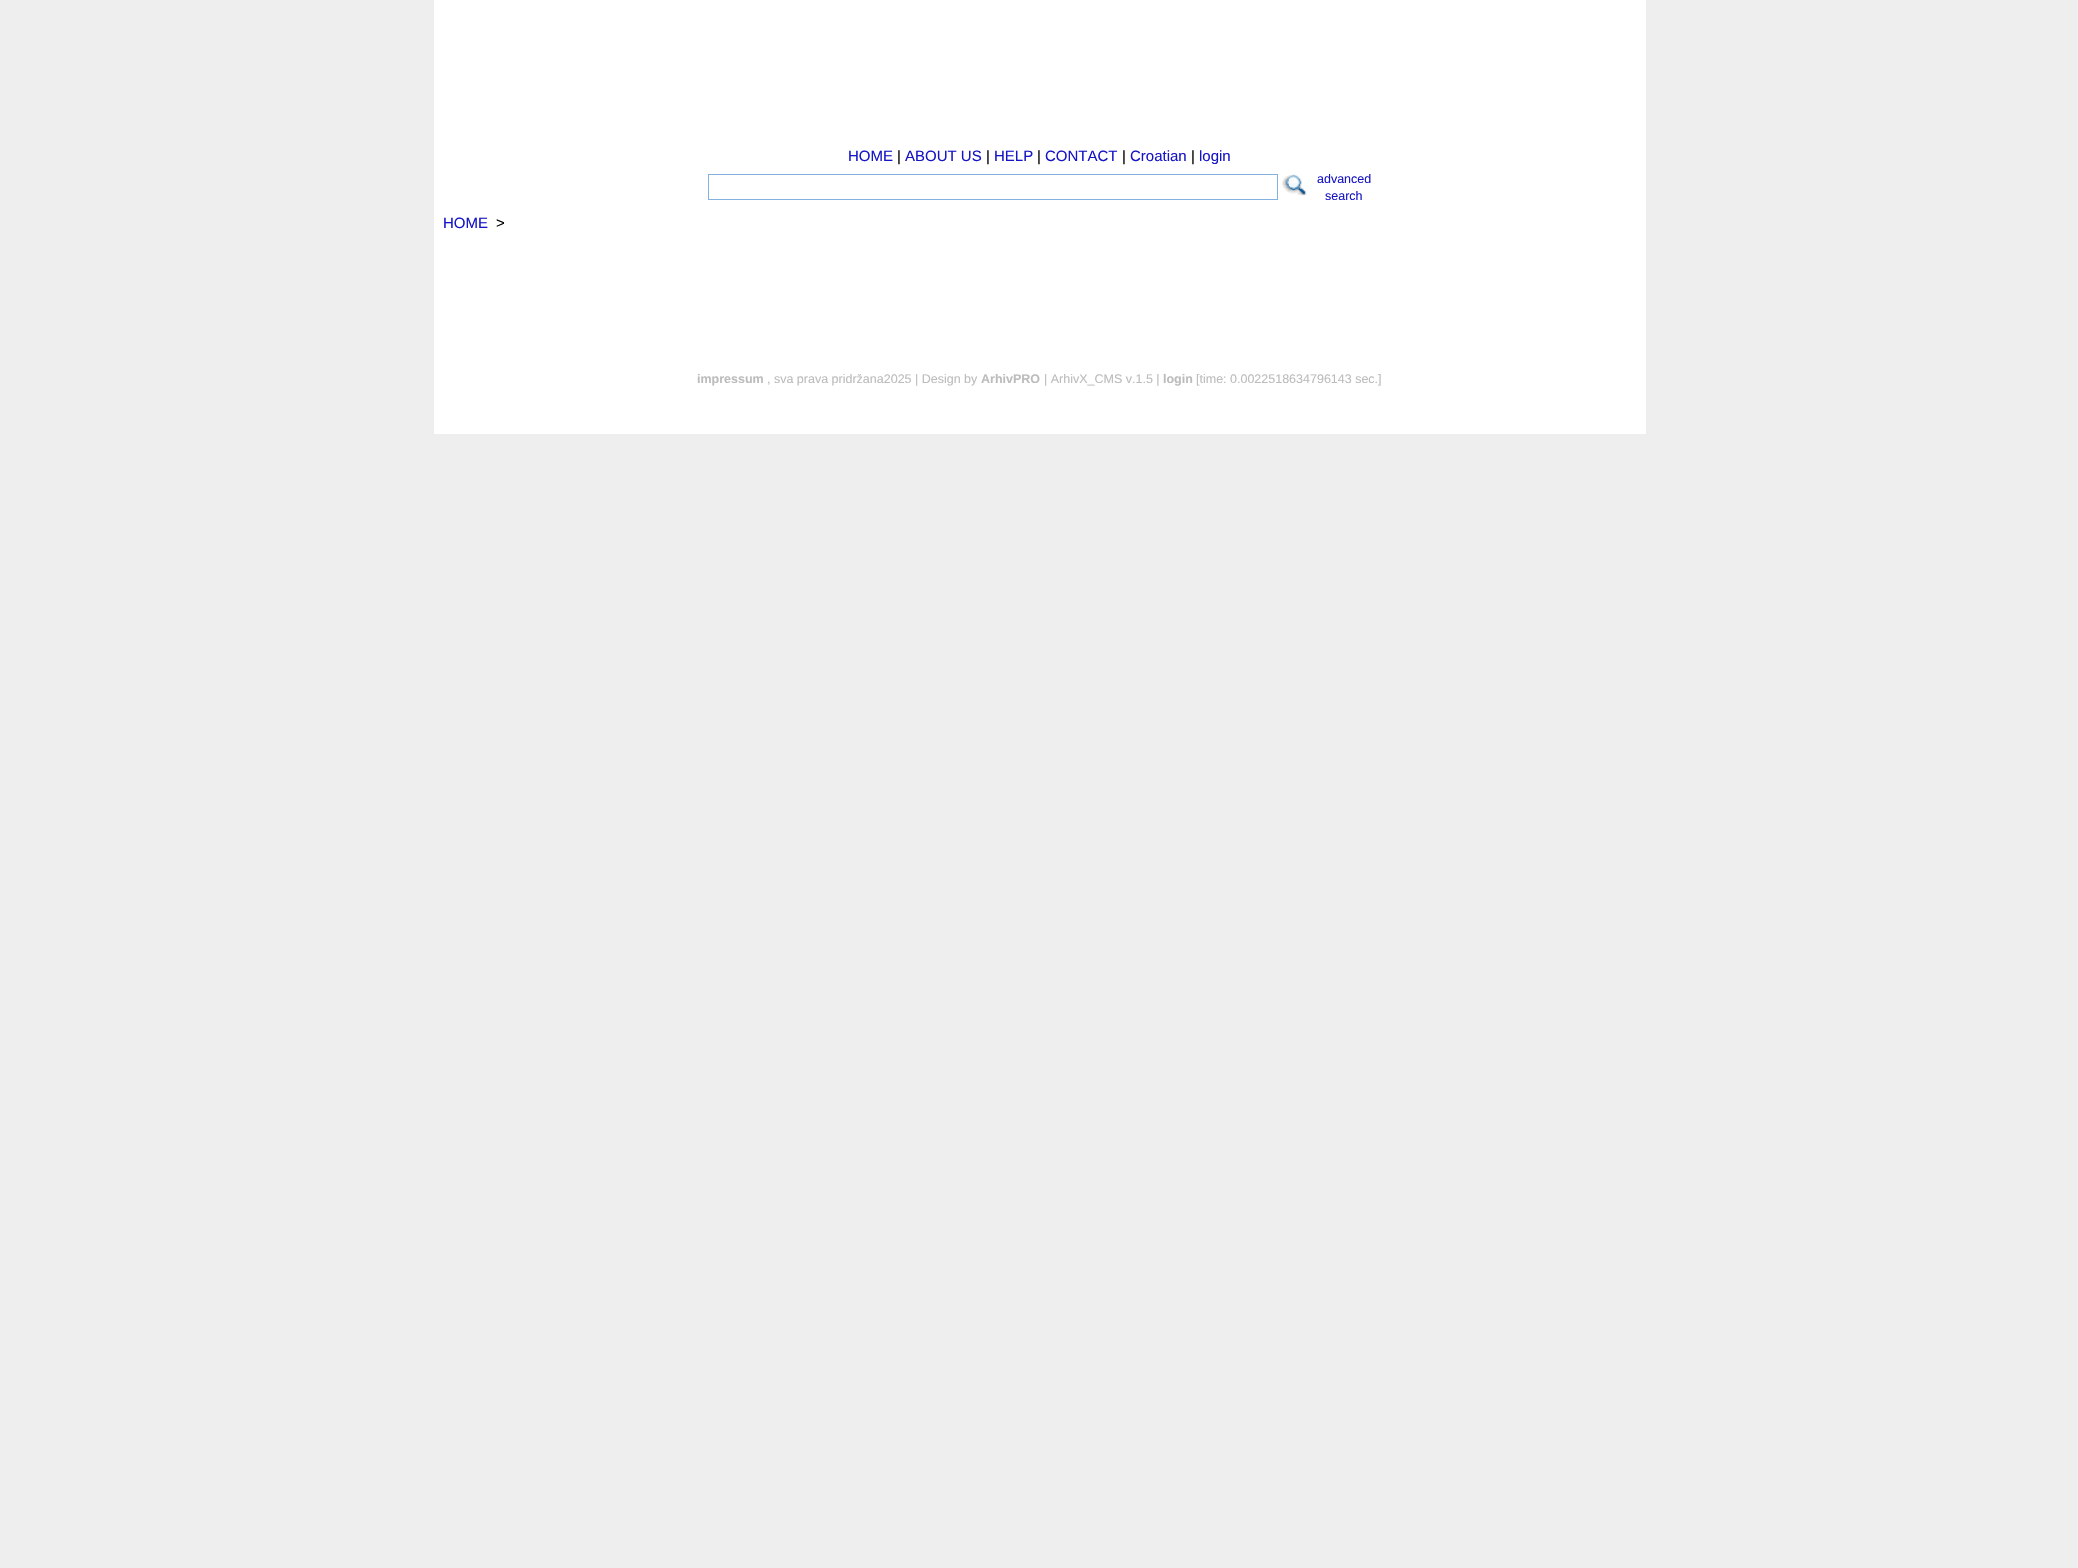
void draw(SkCanvas* c) {
SkPaint p;
p.setAntiAlias(true);
auto F=[&](const char* family, int weight, float size, bool italic = false){SkFontStyle style(weight, SkFontStyle::kNormal_Width,italic ? SkFontStyle::kItalic_Slant : SkFontStyle::kUpright_Slant);SkFont result(fontMgr->matchFamilyStyle(family, style), size);result.setSubpixel(true);return result;};
auto T=[&](const char* s, float x, float y, const SkFont& font){c->drawString(s, x, y, font, p);};
auto R=[&](float x, float y, float w, float h){c->drawRect(SkRect::MakeXYWH(x, y, w, h), p);};
auto I=[&](const char* path, float x, float y, float w, float h){auto image = SkImages::DeferredFromEncodedData(SkData::MakeFromFileName(path));c->drawImageRect(image, SkRect::MakeXYWH(x, y, w, h), SkSamplingOptions());};
c->clear(0xffeeeeee);
p.setColor(0xffffffff);
R(434,0,1212,434);
auto f1 = F("Liberation Sans",400,15);
p.setColor(0xff1615c5);
T("HOME",848,161,f1);
p.setColor(0xff000000);
T("|",897,161,f1);
p.setColor(0xff1615c5);
T("ABOUT US",905,161,f1);
p.setColor(0xff000000);
T("|",986,161,f1);
p.setColor(0xff1615c5);
T("HELP",994,161,f1);
p.setColor(0xff000000);
T("|",1037,161,f1);
p.setColor(0xff1615c5);
T("CONTACT",1045,161,f1);
p.setColor(0xff000000);
T("|",1122,161,f1);
p.setColor(0xff1615c5);
T("Croatian",1130,161,f1);
p.setColor(0xff000000);
T("|",1191,161,f1);
p.setColor(0xff1615c5);
T("login",1199,161,f1);
p.setStroke(true);
p.setStrokeWidth(1);
p.setColor(0xff85b1de);
c->drawRect(SkRect::MakeXYWH(708.5,174.5,569,25),p);
I("1.png",1282,174,25,22);
auto f2 = F("Liberation Sans",400,12.5);
p.setStroke(false);
p.setColor(0xff1615c5);
T("advanced",1317,183,f2);
T("search",1325,200,f2);
T("HOME",443,228,f1);
p.setColor(0xff000000);
T(">",496,228,f1);
auto f3 = F("Liberation Sans",700,12.5);
p.setColor(0xffbcbcbc);
T("impressum",697,383,f3);
T(", sva prava pridržana2025 | Design by",767,383,f2);
T("ArhivPRO",981,383,f3);
T("| ArhivX_CMS v.1.5 |",1044,383,f2);
T("login",1163,383,f3);
T("[time: 0.0022518634796143 sec.]",1196,383,f2);
}
